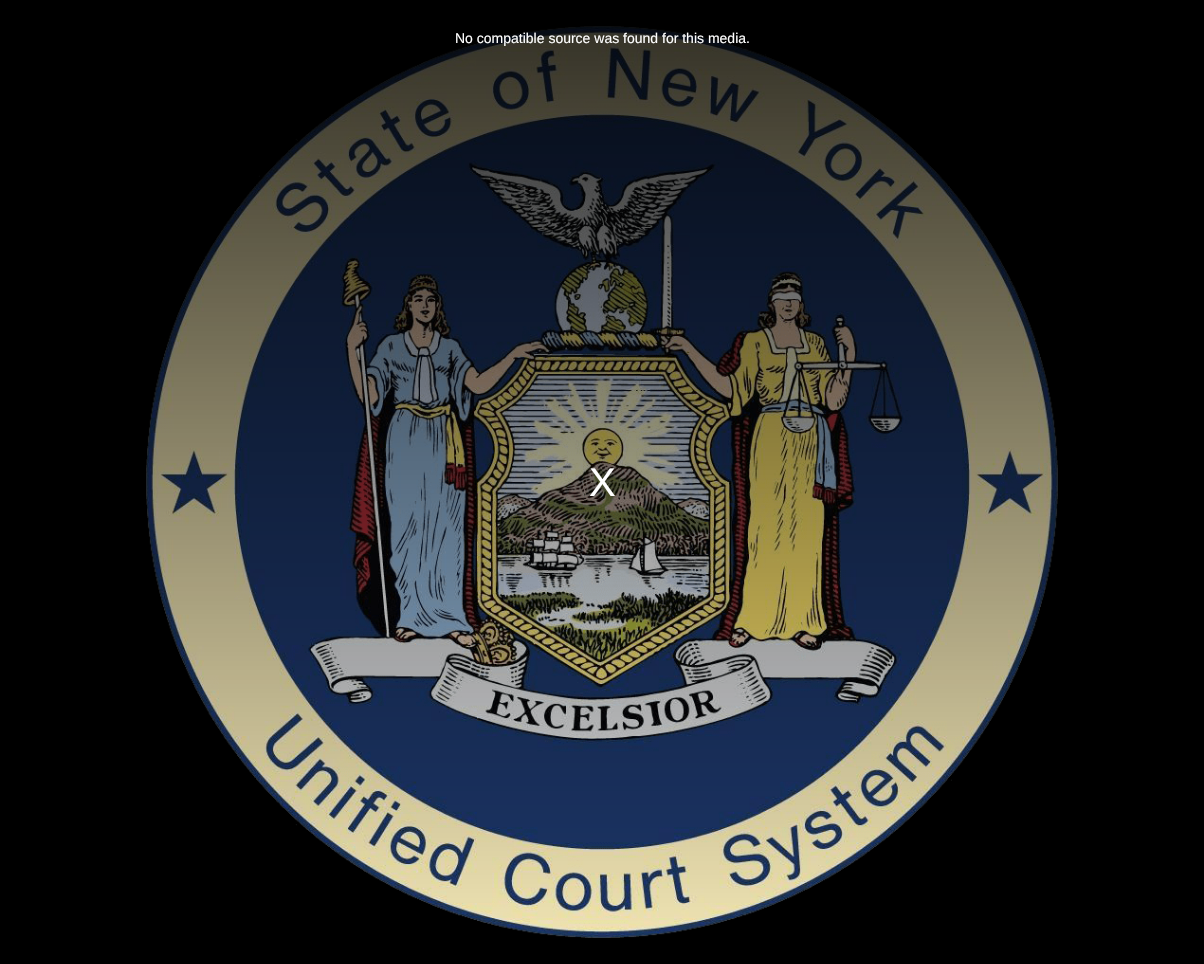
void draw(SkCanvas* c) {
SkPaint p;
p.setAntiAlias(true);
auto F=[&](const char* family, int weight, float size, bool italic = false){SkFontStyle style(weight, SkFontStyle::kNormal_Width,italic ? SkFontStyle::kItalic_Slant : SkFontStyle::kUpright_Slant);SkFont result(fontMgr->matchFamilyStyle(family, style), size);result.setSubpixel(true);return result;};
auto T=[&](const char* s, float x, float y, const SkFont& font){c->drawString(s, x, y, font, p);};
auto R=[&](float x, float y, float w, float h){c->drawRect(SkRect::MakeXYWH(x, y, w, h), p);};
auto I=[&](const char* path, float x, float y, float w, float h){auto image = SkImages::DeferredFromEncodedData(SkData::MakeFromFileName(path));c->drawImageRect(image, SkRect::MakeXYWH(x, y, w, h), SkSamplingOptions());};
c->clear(0xff000000);
I("1.png",146,26,912,912);
{
const SkColor colors[] = {0xcc000000,0x00000000};
const float stops[] = {0,1};
const SkPoint ends[] = {{602,8}, {602,956}};
p.setShader(SkGradientShader::MakeLinear(ends, colors, stops, 2, SkTileMode::kClamp));
p.setAlpha(255);
}
R(146,26,912,904);
auto f1 = F("Liberation Sans",400,14);
p.setShader(nullptr);
p.setColor(0xffffffff);
T("No compatible source was found for this media.",455,43,f1);
auto f2 = F("Liberation Sans",400,40);
T("X",589,496,f2);
}
